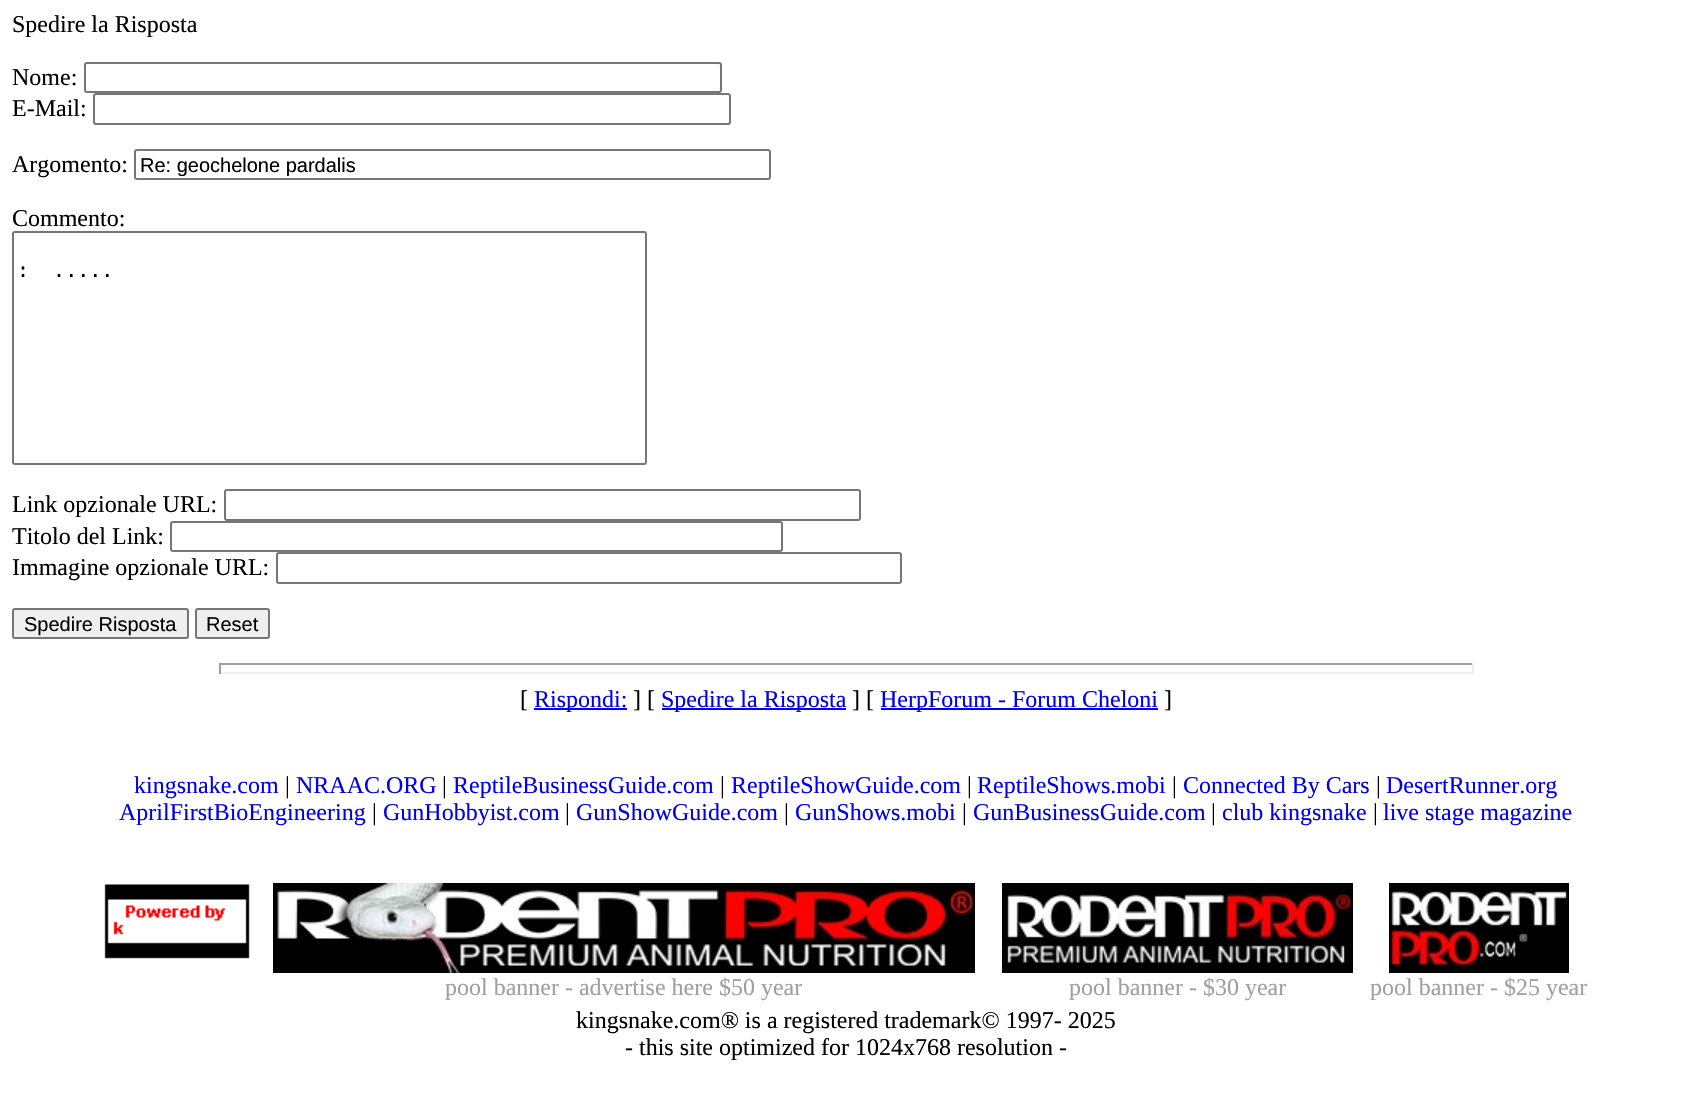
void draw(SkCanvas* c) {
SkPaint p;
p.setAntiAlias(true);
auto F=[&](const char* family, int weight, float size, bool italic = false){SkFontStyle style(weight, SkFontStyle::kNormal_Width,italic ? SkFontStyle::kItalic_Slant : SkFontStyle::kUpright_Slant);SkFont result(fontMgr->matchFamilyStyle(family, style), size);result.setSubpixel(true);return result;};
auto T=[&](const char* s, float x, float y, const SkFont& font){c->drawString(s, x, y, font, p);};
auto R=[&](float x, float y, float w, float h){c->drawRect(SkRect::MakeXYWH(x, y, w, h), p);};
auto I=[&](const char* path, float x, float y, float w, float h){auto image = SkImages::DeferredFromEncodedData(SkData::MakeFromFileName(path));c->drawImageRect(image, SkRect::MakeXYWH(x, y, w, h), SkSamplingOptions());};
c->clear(0xffffffff);
auto f1 = F("Liberation Serif",400,24);
p.setColor(0xff000000);
T("Spedire la Risposta",12,32,f1);
T("Nome:",12,85,f1);
p.setStroke(true);
p.setStrokeWidth(2);
p.setColor(0xff767676);
c->drawRoundRect(SkRect::MakeXYWH(85,63,636,29),2,2,p);
p.setStroke(false);
p.setColor(0xff000000);
T("E-Mail:",12,116,f1);
p.setStroke(true);
p.setColor(0xff767676);
c->drawRoundRect(SkRect::MakeXYWH(94,94,636,30),2,2,p);
p.setStroke(false);
p.setColor(0xff000000);
T("Argomento:",12,172,f1);
p.setStroke(true);
p.setColor(0xff767676);
c->drawRoundRect(SkRect::MakeXYWH(135,150,635,29),2,2,p);
c->save();
c->clipRect(SkRect::MakeXYWH(140,153,625,23));
auto f2 = F("Liberation Sans",400,20);
p.setStroke(false);
p.setColor(0xff000000);
T("Re: geochelone pardalis",140,172,f2);
c->restore();
T("Commento:",12,226,f1);
p.setStroke(true);
p.setColor(0xff767676);
c->drawRoundRect(SkRect::MakeXYWH(13,232,633,232),2,2,p);
auto f3 = F("DejaVu Sans Mono",400,20);
p.setStroke(false);
p.setColor(0xff000000);
T(":  .....",17,277,f3);
T("Link opzionale URL:",12,512,f1);
p.setStroke(true);
p.setColor(0xff767676);
c->drawRoundRect(SkRect::MakeXYWH(225,490,635,30),2,2,p);
p.setStroke(false);
p.setColor(0xff000000);
T("Titolo del Link:",12,544,f1);
p.setStroke(true);
p.setColor(0xff767676);
c->drawRoundRect(SkRect::MakeXYWH(171,522,611,29),2,2,p);
p.setStroke(false);
p.setColor(0xff000000);
T("Immagine opzionale URL:",12,575,f1);
p.setStroke(true);
p.setColor(0xff767676);
c->drawRoundRect(SkRect::MakeXYWH(277,553,624,30),2,2,p);
p.setStroke(false);
p.setColor(0xffefefef);
c->drawRoundRect(SkRect::MakeXYWH(13,609,175,29),2,2,p);
p.setStroke(true);
p.setColor(0xff767676);
c->drawRoundRect(SkRect::MakeXYWH(13,609,175,29),2,2,p);
p.setStroke(false);
p.setColor(0xff000000);
T("Spedire Risposta",24,631,f2);
p.setColor(0xffefefef);
c->drawRoundRect(SkRect::MakeXYWH(196,609,73,29),2,2,p);
p.setStroke(true);
p.setColor(0xff767676);
c->drawRoundRect(SkRect::MakeXYWH(196,609,73,29),2,2,p);
p.setStroke(false);
p.setColor(0xff000000);
T("Reset",206,631,f2);
p.setColor(0xff9f9f9f);
R(219,663,1254,2);
p.setColor(0xffeeeeee);
R(1472,663,2,11);
R(219,672,1254,2);
p.setColor(0xff9f9f9f);
R(219,663,2,11);
p.setColor(0xff000000);
T("[",520,707,f1);
p.setColor(0xff0000ee);
R(534,708,93,2);
T("Rispondi:",534,707,f1);
p.setColor(0xff000000);
T("] [",633,707,f1);
p.setColor(0xff0000ee);
R(662,708,184,2);
T("Spedire la Risposta",661,707,f1);
p.setColor(0xff000000);
T("] [",852,707,f1);
p.setColor(0xff0000ee);
R(881,708,277,2);
T("HerpForum - Forum Cheloni",880,707,f1);
p.setColor(0xff000000);
T("]",1164,707,f1);
p.setColor(0xff0000ee);
T("kingsnake.com",134,793,f1);
p.setColor(0xff000000);
T("|",285,793,f1);
p.setColor(0xff0000ee);
T("NRAAC.ORG",296,793,f1);
p.setColor(0xff000000);
T("|",442,793,f1);
p.setColor(0xff0000ee);
T("ReptileBusinessGuide.com",453,793,f1);
p.setColor(0xff000000);
T("|",720,793,f1);
p.setColor(0xff0000ee);
T("ReptileShowGuide.com",731,793,f1);
p.setColor(0xff000000);
T("|",967,793,f1);
p.setColor(0xff0000ee);
T("ReptileShows.mobi",977,793,f1);
p.setColor(0xff000000);
T("|",1172,793,f1);
p.setColor(0xff0000ee);
T("Connected By Cars",1183,793,f1);
p.setColor(0xff000000);
T("|",1376,793,f1);
p.setColor(0xff0000ee);
T("DesertRunner.org",1386,793,f1);
T("AprilFirstBioEngineering",119,820,f1);
p.setColor(0xff000000);
T("|",372,820,f1);
p.setColor(0xff0000ee);
T("GunHobbyist.com",383,820,f1);
p.setColor(0xff000000);
T("|",565,820,f1);
p.setColor(0xff0000ee);
T("GunShowGuide.com",576,820,f1);
p.setColor(0xff000000);
T("|",784,820,f1);
p.setColor(0xff0000ee);
T("GunShows.mobi",795,820,f1);
p.setColor(0xff000000);
T("|",962,820,f1);
p.setColor(0xff0000ee);
T("GunBusinessGuide.com",973,820,f1);
p.setColor(0xff000000);
T("|",1211,820,f1);
p.setColor(0xff0000ee);
T("club kingsnake",1222,820,f1);
p.setColor(0xff000000);
T("|",1373,820,f1);
p.setColor(0xff0000ee);
T("live stage magazine",1383,820,f1);
I("1.png",104,884,146,75);
I("2.png",273,883,702,90);
p.setColor(0xff9f9f9f);
T("pool banner - advertise here $50 year",445,995,f1);
I("3.png",1002,883,351,90);
T("pool banner - $30 year",1069,995,f1);
I("4.png",1389,883,180,90);
T("pool banner - $25 year",1370,995,f1);
p.setColor(0xff000000);
T("kingsnake.com® is a registered trademark© 1997- 2025",576,1028,f1);
T("- this site optimized for 1024x768 resolution -",625,1055,f1);
}
